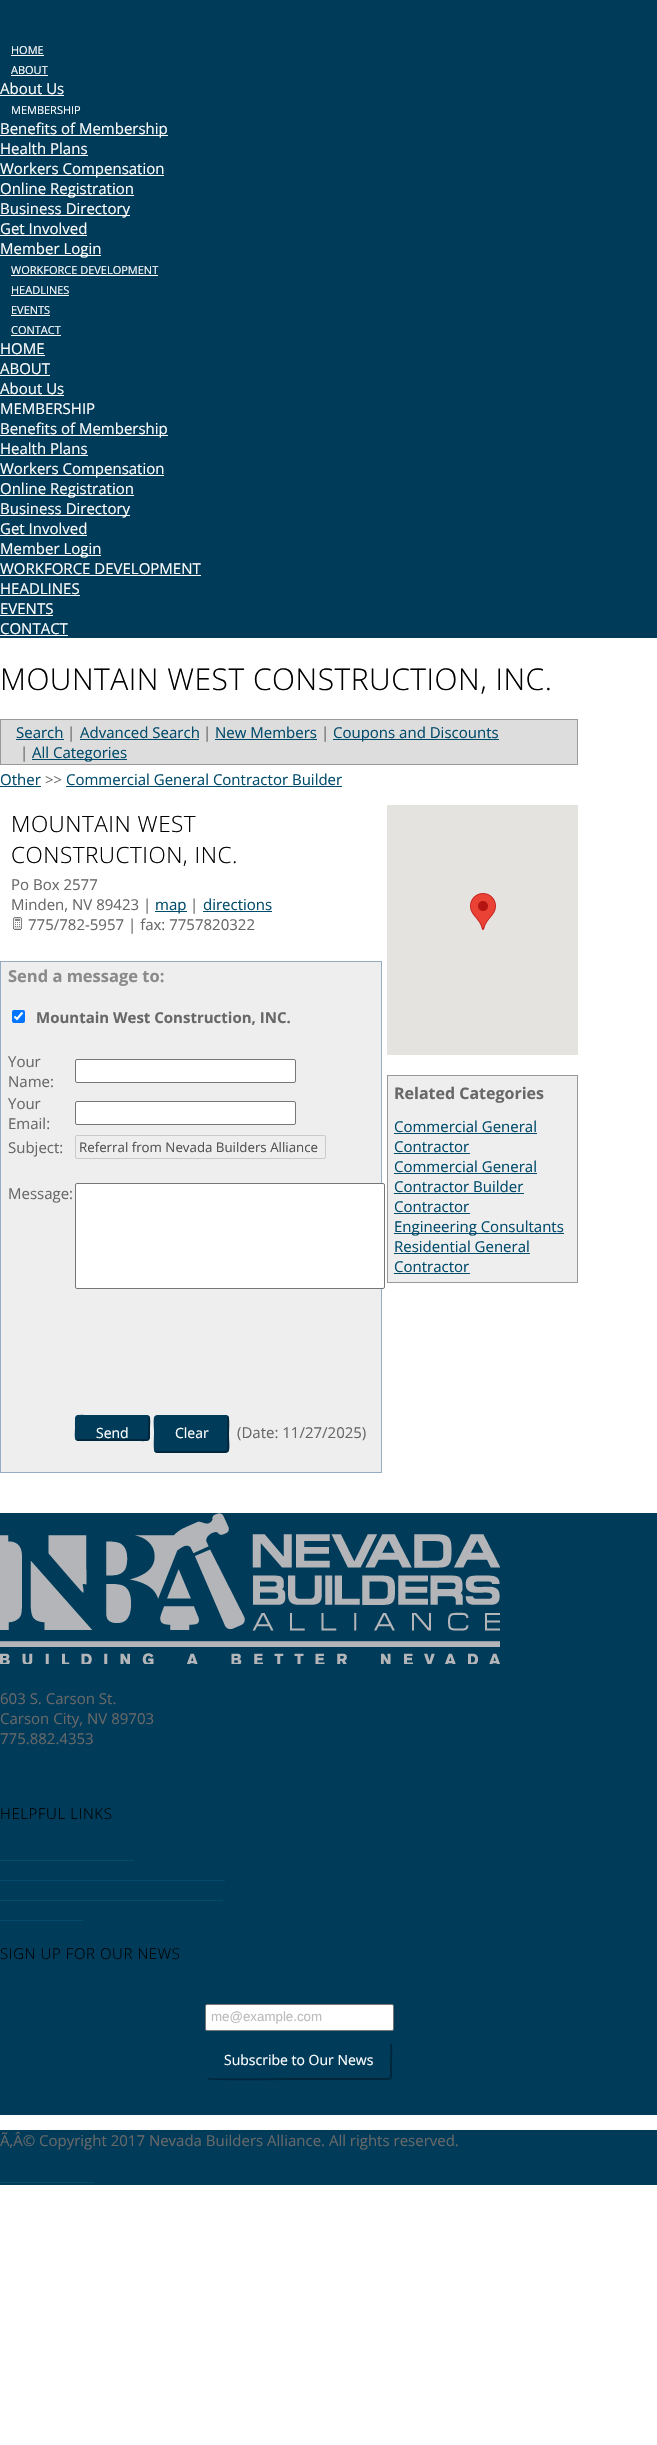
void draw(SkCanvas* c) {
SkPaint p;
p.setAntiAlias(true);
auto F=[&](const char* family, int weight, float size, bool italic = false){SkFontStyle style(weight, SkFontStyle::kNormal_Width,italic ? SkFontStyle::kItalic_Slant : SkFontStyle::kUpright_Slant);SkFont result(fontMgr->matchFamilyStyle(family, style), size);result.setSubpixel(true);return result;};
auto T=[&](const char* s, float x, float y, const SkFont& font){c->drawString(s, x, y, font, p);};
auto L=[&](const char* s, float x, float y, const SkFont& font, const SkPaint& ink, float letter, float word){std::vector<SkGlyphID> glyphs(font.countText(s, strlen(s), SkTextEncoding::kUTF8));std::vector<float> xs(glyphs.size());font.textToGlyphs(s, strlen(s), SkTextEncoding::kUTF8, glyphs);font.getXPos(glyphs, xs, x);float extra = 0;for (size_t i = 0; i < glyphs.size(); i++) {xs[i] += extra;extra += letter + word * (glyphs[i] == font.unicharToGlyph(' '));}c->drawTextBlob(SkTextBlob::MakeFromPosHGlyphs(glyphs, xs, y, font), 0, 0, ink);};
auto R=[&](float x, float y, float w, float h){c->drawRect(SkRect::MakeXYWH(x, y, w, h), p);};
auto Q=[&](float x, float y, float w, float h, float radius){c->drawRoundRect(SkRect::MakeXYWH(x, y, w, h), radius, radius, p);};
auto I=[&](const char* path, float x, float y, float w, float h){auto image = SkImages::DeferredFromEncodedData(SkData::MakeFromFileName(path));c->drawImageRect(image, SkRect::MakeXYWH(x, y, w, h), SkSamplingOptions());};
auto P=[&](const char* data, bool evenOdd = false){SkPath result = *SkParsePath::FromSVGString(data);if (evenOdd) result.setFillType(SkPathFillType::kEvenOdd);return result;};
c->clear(0xffffffff);
p.setColor(0xff003b5a);
R(0,0,657,638);
auto f1 = F("Open Sans",400,11);
p.setColor(0xffffffff);
T("HOME",11,54,f1);
R(11,55,33,1);
T("ABOUT",11,74,f1);
R(11,75,37,1);
auto f2 = F("Open Sans",400,15);
T("About Us",0,94,f2);
R(0,95,64,1);
T("MEMBERSHIP",11,114,f1);
R(0,135,168,1);
T("Benefits of Membership",0,134,f2);
T("Health Plans",0,154,f2);
R(0,155,88,1);
R(0,175,164,1);
T("Workers Compensation",0,174,f2);
R(0,195,134,1);
T("Online Registration",0,194,f2);
R(0,215,130,1);
T("Business Directory",0,214,f2);
T("Get Involved",0,234,f2);
R(0,235,87,1);
R(0,255,101,1);
T("Member Login",0,254,f2);
T("WORKFORCE DEVELOPMENT",11,274,f1);
R(11,275,147,1);
T("HEADLINES",11,294,f1);
R(11,295,58,1);
T("EVENTS",11,314,f1);
R(11,315,39,1);
T("CONTACT",11,334,f1);
R(11,335,50,1);
T("HOME",0,354,f2);
R(0,355,45,1);
T("ABOUT",0,374,f2);
R(0,375,50,1);
T("About Us",0,394,f2);
R(0,395,64,1);
T("MEMBERSHIP",0,414,f2);
R(0,435,168,1);
T("Benefits of Membership",0,434,f2);
T("Health Plans",0,454,f2);
R(0,455,88,1);
R(0,475,164,1);
T("Workers Compensation",0,474,f2);
R(0,495,134,1);
T("Online Registration",0,494,f2);
R(0,515,130,1);
T("Business Directory",0,514,f2);
T("Get Involved",0,534,f2);
R(0,535,87,1);
R(0,555,101,1);
T("Member Login",0,554,f2);
T("WORKFORCE DEVELOPMENT",0,574,f2);
R(0,575,201,1);
T("HEADLINES",0,594,f2);
R(0,595,80,1);
T("EVENTS",0,614,f2);
R(0,615,53,1);
T("CONTACT",0,634,f2);
R(0,635,68,1);
auto f3 = F("Open Sans",300,30);
p.setColor(0xff000000);
L("MOUNTAIN WEST CONSTRUCTION, INC.",0,690,f3,p,.5,0);
p.setColor(0xffdddddd);
c->drawRect(SkRect::MakeXYWH(.5,719.5,577,45),p);
p.setStroke(true);
p.setStrokeWidth(1);
p.setColor(0xff999999);
c->drawRect(SkRect::MakeXYWH(.5,719.5,577,45),p);
p.setStroke(false);
p.setColor(0xff014b6b);
T("Search",16,738,f2);
R(16,739,48,1);
p.setColor(0xff686868);
T("|",67,738,f2);
p.setColor(0xff014b6b);
T("Advanced Search",80,738,f2);
R(80,739,119,1);
p.setColor(0xff686868);
T("|",203,738,f2);
p.setColor(0xff014b6b);
T("New Members",215,738,f2);
R(215,739,102,1);
p.setColor(0xff686868);
T("|",321,738,f2);
p.setColor(0xff014b6b);
R(333,739,166,1);
T("Coupons and Discounts",333,738,f2);
p.setColor(0xff686868);
T("|",20,758,f2);
p.setColor(0xff014b6b);
R(32,759,95,1);
T("All Categories",32,758,f2);
T("Other",0,785,f2);
R(0,786,41,1);
p.setColor(0xff686868);
T(">>",45,785,f2);
p.setColor(0xff014b6b);
T("Commercial General Contractor Builder",66,785,f2);
R(66,786,276,1);
auto f4 = F("Open Sans",300,22.5);
p.setColor(0xff000000);
L("MOUNTAIN WEST",11,832,f4,p,.5,0);
L("CONSTRUCTION, INC.",11,863,f4,p,.5,0);
p.setColor(0xff686868);
T("Po Box 2577",11,890,f2);
T("Minden, NV 89423 |",11,910,f2);
p.setColor(0xff014b6b);
R(155,911,32,1);
T("map",155,910,f2);
p.setColor(0xff686868);
T("|",190,910,f2);
p.setColor(0xff014b6b);
T("directions",203,910,f2);
R(203,911,69,1);
I("1.png",13,917,9,13);
p.setColor(0xff686868);
T("775/782-5957 | fax: 7757820322",28,930,f2);
p.setColor(0xffeeeeee);
c->drawRect(SkRect::MakeXYWH(.5,961.5,381,511),p);
p.setStroke(true);
p.setColor(0xff96acc3);
c->drawRect(SkRect::MakeXYWH(.5,961.5,381,511),p);
auto f5 = F("Open Sans",700,16.5);
p.setStroke(false);
p.setColor(0xff8a8a8a);
T("Send a message to:",8,982,f5);
p.setColor(0xff0075ff);
Q(12,1010,13,13,2);
p.setStroke(true);
p.setStrokeWidth(2.1);
p.setColor(0xffffffff);
c->drawPath(P("M14.5 1016.5l2.5 2.5l5.5-6.5"),p);
auto f6 = F("Open Sans",700,15);
p.setStroke(false);
p.setColor(0xff686868);
T("Mountain West Construction, INC.",36,1023,f6);
T("Your",8,1067,f2);
T("Name:",8,1087,f2);
p.setColor(0xffffffff);
c->drawRoundRect(SkRect::MakeXYWH(75.5,1059.5,220,23),1.5,1.5,p);
p.setStroke(true);
p.setStrokeWidth(1);
p.setColor(0xff767676);
c->drawRoundRect(SkRect::MakeXYWH(75.5,1059.5,220,23),1.5,1.5,p);
p.setStroke(false);
p.setColor(0xff686868);
T("Your",8,1109,f2);
T("Email:",8,1129,f2);
p.setColor(0xffffffff);
c->drawRoundRect(SkRect::MakeXYWH(75.5,1101.5,220,23),1.5,1.5,p);
p.setStroke(true);
p.setColor(0xff767676);
c->drawRoundRect(SkRect::MakeXYWH(75.5,1101.5,220,23),1.5,1.5,p);
p.setStroke(false);
p.setColor(0xff686868);
T("Subject:",8,1153,f2);
p.setStroke(true);
p.setColor(0xffcacaca);
c->drawRoundRect(SkRect::MakeXYWH(75.5,1135.5,250,23),1.5,1.5,p);
auto f7 = F("Open Sans",400,13.3);
p.setStroke(false);
p.setColor(0xff545454);
T("Referral from Nevada Builders Alliance",79,1152,f7);
p.setColor(0xff686868);
T("Message:",8,1199,f2);
p.setColor(0xffffffff);
c->drawRoundRect(SkRect::MakeXYWH(75.5,1183.5,309,105),1.5,1.5,p);
p.setStroke(true);
p.setColor(0xff767676);
c->drawRoundRect(SkRect::MakeXYWH(75.5,1183.5,309,105),1.5,1.5,p);
p.setStroke(false);
p.setColor(0xff003b5a);
Q(75,1415,75,26,4);
p.setStroke(true);
p.setStrokeWidth(2);
p.setColor(0xff00273c);
c->drawPath(P("M148.5 1416.5c1.5 2 .5 9 .5 11.5c0 14.5 2 12-14 12h-56.5l-2-.5"),p);
p.setColor(0xff003b5a);
c->drawPath(P("M76.5 1439.5c-1.5-2-.5-9-.5-11.5c0-14.5-2-12 14-12h56.5l2 .5"),p);
auto f8 = F("Open Sans",400,14);
p.setStroke(false);
p.setColor(0xffffffff);
T("Send",96,1438,f8);
p.setColor(0xff003b5a);
Q(154,1415,75,38,4);
p.setStroke(true);
p.setColor(0xff00273c);
c->drawPath(P("M227.5 1416.5c1.5 2 .5 14.5 .5 17.5c0 20 4.5 18-14 18h-56.5l-2-.5"),p);
p.setColor(0xff003b5a);
c->drawPath(P("M155.5 1451.5c-1.5-2-.5-14.5-.5-17.5c0-20-4.5-18 14-18h56.5l2 .5"),p);
p.setStroke(false);
p.setColor(0xffffffff);
T("Clear",175,1438,f8);
p.setColor(0xff686868);
T("(Date: 11/27/2025)",237,1438,f2);
p.setColor(0xffe5e3df);
R(387,805,191,250);
I("2.png",470,893,26,37);
p.setColor(0xffeeeeee);
c->drawRect(SkRect::MakeXYWH(387.5,1075.5,190,207),p);
p.setStroke(true);
p.setStrokeWidth(1);
p.setColor(0xff999999);
c->drawRect(SkRect::MakeXYWH(387.5,1075.5,190,207),p);
auto f9 = F("Open Sans",700,16);
p.setStroke(false);
p.setColor(0xff686868);
T("Related Categories",394,1099,f9);
p.setColor(0xff014b6b);
T("Commercial General",394,1132,f2);
R(394,1133,143,1);
T("Contractor",394,1152,f2);
R(394,1153,76,1);
T("Commercial General",394,1172,f2);
R(394,1173,143,1);
T("Contractor Builder",394,1192,f2);
R(394,1193,130,1);
T("Contractor",394,1212,f2);
R(394,1213,76,1);
R(394,1233,170,1);
T("Engineering Consultants",394,1232,f2);
T("Residential General",394,1252,f2);
R(394,1253,136,1);
T("Contractor",394,1272,f2);
R(394,1273,76,1);
p.setColor(0xff003b5a);
R(0,1513,657,602);
I("3.png",0,1513,500,151);
p.setColor(0xff686868);
T("603 S. Carson St.",0,1704,f2);
T("Carson City, NV 89703",0,1724,f2);
T("775.882.4353",0,1744,f2);
auto f10 = F("Open Sans",300,15);
p.setColor(0xff000000);
L("HELPFUL LINKS",0,1819,f10,p,.6,0);
p.setColor(0xff014b6b);
R(0,1860,134,1);
R(0,1880,225,1);
R(0,1900,223,1);
R(0,1920,83,1);
p.setColor(0xff000000);
L("SIGN UP FOR OUR NEWS",0,1959,f10,p,.6,0);
p.setColor(0xffffffff);
c->drawRoundRect(SkRect::MakeXYWH(205.5,2004.5,188,26),1.5,1.5,p);
p.setStroke(true);
p.setColor(0xff767676);
c->drawRoundRect(SkRect::MakeXYWH(205.5,2004.5,188,26),1.5,1.5,p);
auto f11 = F("Liberation Sans",400,13.3);
p.setStroke(false);
p.setColor(0xffbbbbbb);
T("me@example.com",211,2021,f11);
p.setStroke(true);
p.setStrokeWidth(2);
p.setColor(0xff00273c);
c->drawPath(P("M390.5 2043.5c1.5 2 .5 14.5 .5 17.5v10.5c0 1.5 1 7.5-2.5 7.5h-89.5c-8 0-89 1-91-.5h-.5"),p);
p.setColor(0xff003b5a);
c->drawPath(P("M207.5 2078.5c-1.5-2-.5-14.5-.5-17.5v-10.5c0-1.5-1-7.5 2.5-7.5h89.5c8 0 89-1 91 .5h.5"),p);
p.setStroke(false);
p.setColor(0xffffffff);
T("Subscribe to Our News",224,2065,f8);
p.setColor(0xff003b5a);
R(0,2130,657,55);
p.setColor(0xff686868);
T("Ã‚Â© Copyright 2017 Nevada Builders Alliance. All rights reserved.",0,2146,f2);
p.setColor(0xff014b6b);
R(0,2182,94,1);
}
